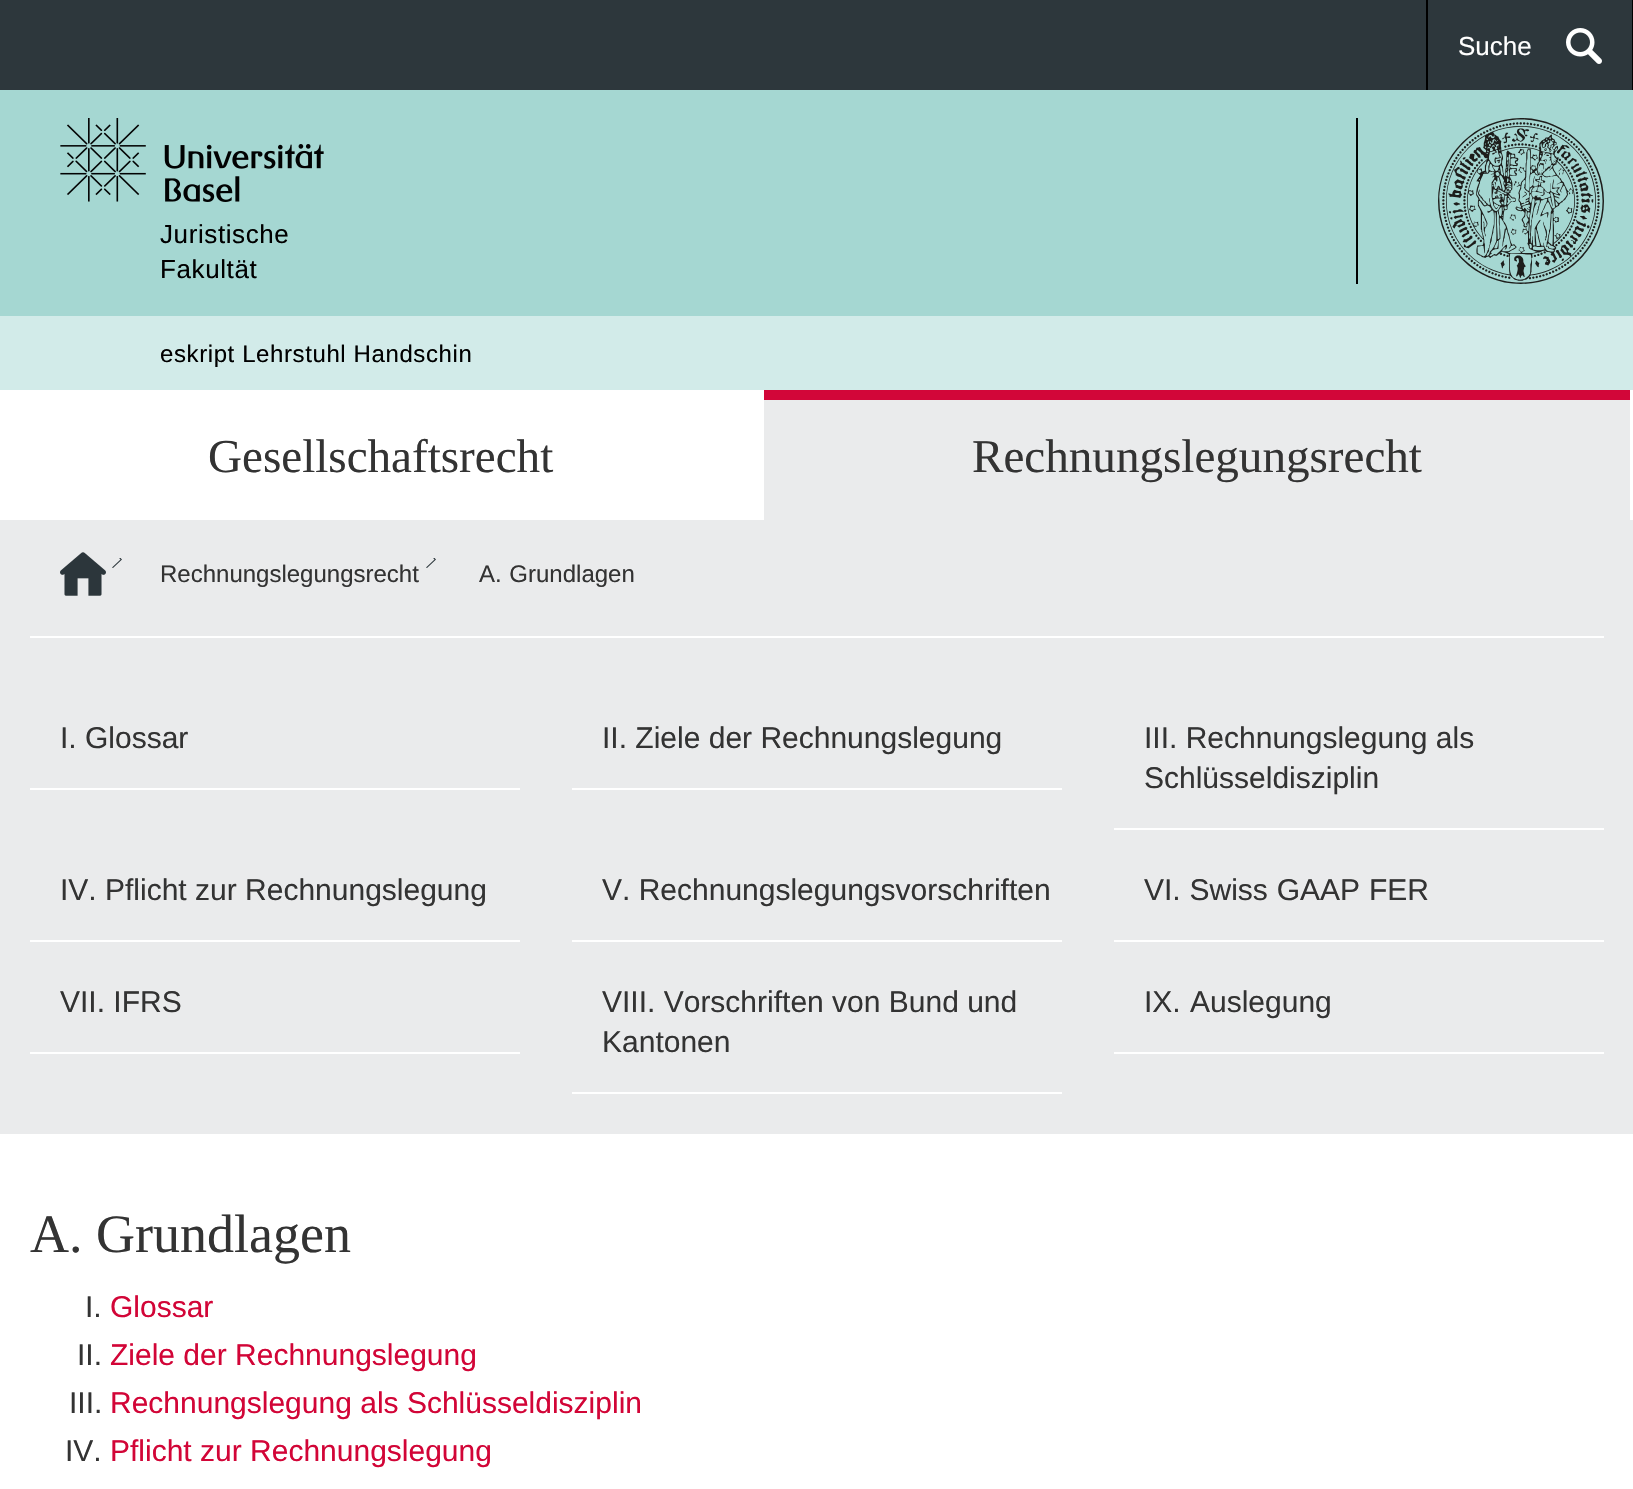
void draw(SkCanvas* c) {
SkPaint p;
p.setAntiAlias(true);
auto F=[&](const char* family, int weight, float size, bool italic = false){SkFontStyle style(weight, SkFontStyle::kNormal_Width,italic ? SkFontStyle::kItalic_Slant : SkFontStyle::kUpright_Slant);SkFont result(fontMgr->matchFamilyStyle(family, style), size);result.setSubpixel(true);return result;};
auto T=[&](const char* s, float x, float y, const SkFont& font){c->drawString(s, x, y, font, p);};
auto L=[&](const char* s, float x, float y, const SkFont& font, const SkPaint& ink, float letter, float word){std::vector<SkGlyphID> glyphs(font.countText(s, strlen(s), SkTextEncoding::kUTF8));std::vector<float> xs(glyphs.size());font.textToGlyphs(s, strlen(s), SkTextEncoding::kUTF8, glyphs);font.getXPos(glyphs, xs, x);float extra = 0;for (size_t i = 0; i < glyphs.size(); i++) {xs[i] += extra;extra += letter + word * (glyphs[i] == font.unicharToGlyph(' '));}c->drawTextBlob(SkTextBlob::MakeFromPosHGlyphs(glyphs, xs, y, font), 0, 0, ink);};
auto R=[&](float x, float y, float w, float h){c->drawRect(SkRect::MakeXYWH(x, y, w, h), p);};
auto I=[&](const char* path, float x, float y, float w, float h){auto image = SkImages::DeferredFromEncodedData(SkData::MakeFromFileName(path));c->drawImageRect(image, SkRect::MakeXYWH(x, y, w, h), SkSamplingOptions());};
auto P=[&](const char* data, bool evenOdd = false){SkPath result = *SkParsePath::FromSVGString(data);if (evenOdd) result.setFillType(SkPathFillType::kEvenOdd);return result;};
c->clear(0xffffffff);
p.setColor(0xff2d373c);
R(0,0,1632,90);
p.setColor(0xff000000);
R(1632,0,1,90);
R(1426,0,2,90);
auto f1 = F("Liberation Sans",400,26);
p.setColor(0xffffffff);
T("Suche",1458,55,f1);
I("1.png",1566,28,36,36);
p.setColor(0xffa5d7d2);
R(0,90,1633,226);
I("2.png",60,118,264,84);
p.setColor(0xff000000);
R(1356,118,2,166);
I("3.png",1438,118,166,166);
L("Juristische",160,243,f1,p,.6,0);
L("Fakultät",160,278,f1,p,.6,0);
p.setColor(0xffd2ebe9);
R(0,316,1633,74);
auto f2 = F("Liberation Sans",400,24);
p.setColor(0xff000000);
L("eskript Lehrstuhl Handschin",160,362,f2,p,.6,0);
auto f3 = F("Liberation Serif",400,47.1);
p.setColor(0xff333333);
T("Gesellschaftsrecht",208,472,f3);
p.setColor(0xffeaebec);
R(764,400,866,120);
p.setColor(0xffd20639);
R(764,390,866,10);
p.setColor(0xff333333);
T("Rechnungslegungsrecht",972,472,f3);
p.setColor(0xffeaebec);
R(0,520,1633,614);
I("4.png",60,552,46,44);
c->save();
c->clipRect(SkRect::MakeXYWH(112,558,10,10));
p.setColor(0xff2c363b);
c->drawPath(P("M113 568l-1-.5l8.5-8l-8.5-9l1-.5l9 9.5z"),p);
c->restore();
p.setColor(0xff333333);
T("Rechnungslegungsrecht",160,582,f2);
c->save();
c->clipRect(SkRect::MakeXYWH(426,558,10,10));
p.setColor(0xff2c363b);
c->drawPath(P("M427 568l-1-.5l8.5-8l-8.5-9l1-.5l9 9.5z"),p);
c->restore();
p.setColor(0xff333333);
L("A. Grundlagen",479,582,f2,p,0,1);
p.setColor(0xffffffff);
R(30,636,1574,2);
R(30,788,490,2);
auto f4 = F("Liberation Sans",400,30);
p.setColor(0xff333333);
T("I. Glossar",60,748,f4);
p.setColor(0xffffffff);
R(572,788,490,2);
p.setColor(0xff333333);
T("II. Ziele der Rechnungslegung",602,748,f4);
p.setColor(0xffffffff);
R(1114,828,490,2);
p.setColor(0xff333333);
T("III. Rechnungslegung als",1144,748,f4);
T("Schlüsseldisziplin",1144,788,f4);
p.setColor(0xffffffff);
R(30,940,490,2);
p.setColor(0xff333333);
T("IV. Pflicht zur Rechnungslegung",60,900,f4);
p.setColor(0xffffffff);
R(572,940,490,2);
p.setColor(0xff333333);
T("V. Rechnungslegungsvorschriften",602,900,f4);
p.setColor(0xffffffff);
R(1114,940,490,2);
p.setColor(0xff333333);
L("VI. Swiss GAAP FER",1144,900,f4,p,0,.5);
p.setColor(0xffffffff);
R(30,1052,490,2);
p.setColor(0xff333333);
T("VII. IFRS",60,1012,f4);
p.setColor(0xffffffff);
R(572,1092,490,2);
p.setColor(0xff333333);
T("VIII. Vorschriften von Bund und",602,1012,f4);
T("Kantonen",602,1052,f4);
p.setColor(0xffffffff);
R(1114,1052,490,2);
p.setColor(0xff333333);
L("IX. Auslegung",1144,1012,f4,p,0,1);
auto f5 = F("Liberation Serif",400,54);
T("A. Grundlagen",30,1252,f5);
T("I.",85,1317,f4);
p.setColor(0xffd20537);
T("Glossar",110,1317,f4);
p.setColor(0xff333333);
T("II.",77,1365,f4);
p.setColor(0xffd20537);
T("Ziele der Rechnungslegung",110,1365,f4);
p.setColor(0xff333333);
T("III.",69,1413,f4);
p.setColor(0xffd20537);
T("Rechnungslegung als Schlüsseldisziplin",110,1413,f4);
p.setColor(0xff333333);
T("IV.",65,1461,f4);
p.setColor(0xffd20537);
T("Pflicht zur Rechnungslegung",110,1461,f4);
}
